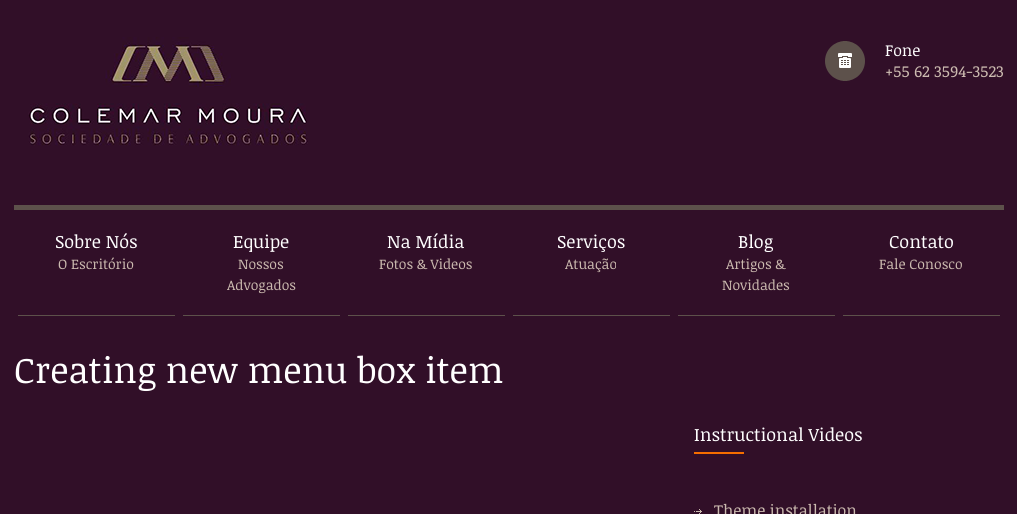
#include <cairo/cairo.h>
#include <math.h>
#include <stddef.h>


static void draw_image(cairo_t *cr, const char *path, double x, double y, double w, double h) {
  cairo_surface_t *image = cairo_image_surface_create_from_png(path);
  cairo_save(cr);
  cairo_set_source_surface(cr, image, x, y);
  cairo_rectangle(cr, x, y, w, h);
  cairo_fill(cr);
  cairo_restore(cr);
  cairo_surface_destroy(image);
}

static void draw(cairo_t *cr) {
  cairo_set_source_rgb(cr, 49 / 255.0, 15 / 255.0, 40 / 255.0);
  cairo_paint(cr);
  cairo_set_source_rgb(cr, 93 / 255.0, 81 / 255.0, 75 / 255.0);
  cairo_rectangle(cr, 14, 205, 990, 5);
  cairo_fill(cr);
  draw_image(cr, "images/1.png", 28, 37, 280, 109);
  draw_image(cr, "images/2.png", 825, 41, 40, 40);
  cairo_rectangle(cr, 18, 315, 157, 1);
  cairo_fill(cr);
  cairo_rectangle(cr, 183, 315, 157, 1);
  cairo_fill(cr);
  cairo_rectangle(cr, 348, 315, 157, 1);
  cairo_fill(cr);
  cairo_rectangle(cr, 513, 315, 157, 1);
  cairo_fill(cr);
  cairo_rectangle(cr, 678, 315, 157, 1);
  cairo_fill(cr);
  cairo_rectangle(cr, 843, 315, 157, 1);
  cairo_fill(cr);
  cairo_set_source_rgb(cr, 246 / 255.0, 110 / 255.0, 0);
  cairo_rectangle(cr, 694, 452, 50, 2);
  cairo_fill(cr);
  draw_image(cr, "images/3.png", 694, 509, 8, 5);
  cairo_select_font_face(cr, "Noticia Text", CAIRO_FONT_SLANT_NORMAL, CAIRO_FONT_WEIGHT_NORMAL);
  cairo_set_font_size(cr, 16);
  cairo_set_source_rgb(cr, 1, 1, 1);
  cairo_move_to(cr, 885, 56);
  cairo_show_text(cr, "Fone");
  cairo_set_source_rgb(cr, 203 / 255.0, 186 / 255.0, 175 / 255.0);
  cairo_move_to(cr, 885, 77);
  cairo_show_text(cr, "+55 62 3594-3523");
  cairo_set_font_size(cr, 18);
  cairo_set_source_rgb(cr, 1, 1, 1);
  cairo_move_to(cr, 55, 248);
  cairo_show_text(cr, "Sobre Nós");
  cairo_set_font_size(cr, 14);
  cairo_set_source_rgb(cr, 203 / 255.0, 186 / 255.0, 175 / 255.0);
  cairo_move_to(cr, 58, 269);
  cairo_show_text(cr, "O Escritório");
  cairo_set_font_size(cr, 18);
  cairo_set_source_rgb(cr, 1, 1, 1);
  cairo_move_to(cr, 233, 248);
  cairo_show_text(cr, "Equipe");
  cairo_set_font_size(cr, 14);
  cairo_set_source_rgb(cr, 203 / 255.0, 186 / 255.0, 175 / 255.0);
  cairo_move_to(cr, 238, 269);
  cairo_show_text(cr, "Nossos");
  cairo_move_to(cr, 227, 290);
  cairo_show_text(cr, "Advogados");
  cairo_set_font_size(cr, 18);
  cairo_set_source_rgb(cr, 1, 1, 1);
  cairo_move_to(cr, 387, 248);
  cairo_show_text(cr, "Na Mídia");
  cairo_set_font_size(cr, 14);
  cairo_set_source_rgb(cr, 203 / 255.0, 186 / 255.0, 175 / 255.0);
  cairo_move_to(cr, 379, 269);
  cairo_show_text(cr, "Fotos & Videos");
  cairo_set_font_size(cr, 18);
  cairo_set_source_rgb(cr, 1, 1, 1);
  cairo_move_to(cr, 557, 248);
  cairo_show_text(cr, "Serviços");
  cairo_set_font_size(cr, 14);
  cairo_set_source_rgb(cr, 203 / 255.0, 186 / 255.0, 175 / 255.0);
  cairo_move_to(cr, 565, 269);
  cairo_show_text(cr, "Atuação");
  cairo_set_font_size(cr, 18);
  cairo_set_source_rgb(cr, 1, 1, 1);
  cairo_move_to(cr, 738, 248);
  cairo_show_text(cr, "Blog");
  cairo_set_font_size(cr, 14);
  cairo_set_source_rgb(cr, 203 / 255.0, 186 / 255.0, 175 / 255.0);
  cairo_move_to(cr, 726, 269);
  cairo_show_text(cr, "Artigos &");
  cairo_move_to(cr, 722, 290);
  cairo_show_text(cr, "Novidades");
  cairo_set_font_size(cr, 18);
  cairo_set_source_rgb(cr, 1, 1, 1);
  cairo_move_to(cr, 889, 248);
  cairo_show_text(cr, "Contato");
  cairo_set_font_size(cr, 14);
  cairo_set_source_rgb(cr, 203 / 255.0, 186 / 255.0, 175 / 255.0);
  cairo_move_to(cr, 879, 269);
  cairo_show_text(cr, "Fale Conosco");
  cairo_set_font_size(cr, 36);
  cairo_set_source_rgb(cr, 1, 1, 1);
  cairo_move_to(cr, 14, 383);
  cairo_show_text(cr, "Creating new menu box item");
  cairo_set_font_size(cr, 18);
  cairo_move_to(cr, 694, 441);
  cairo_show_text(cr, "Instructional Videos");
  cairo_set_font_size(cr, 16);
  cairo_set_source_rgb(cr, 203 / 255.0, 186 / 255.0, 175 / 255.0);
  cairo_move_to(cr, 714, 516);
  cairo_show_text(cr, "Theme installation");
}

int main(void) {
  cairo_surface_t *surface = cairo_image_surface_create(CAIRO_FORMAT_RGB24, 1017, 514);
  cairo_t *cr = cairo_create(surface);
  cairo_font_options_t *options = cairo_font_options_create();
  cairo_font_options_set_hint_metrics(options, CAIRO_HINT_METRICS_OFF);
  cairo_font_options_set_hint_style(options, CAIRO_HINT_STYLE_NONE);
  cairo_set_font_options(cr, options);
  cairo_set_miter_limit(cr, 4);
  draw(cr);
  cairo_surface_write_to_png(surface, "out.png");
  cairo_font_options_destroy(options);
  cairo_destroy(cr);
  cairo_surface_destroy(surface);
  return 0;
}
